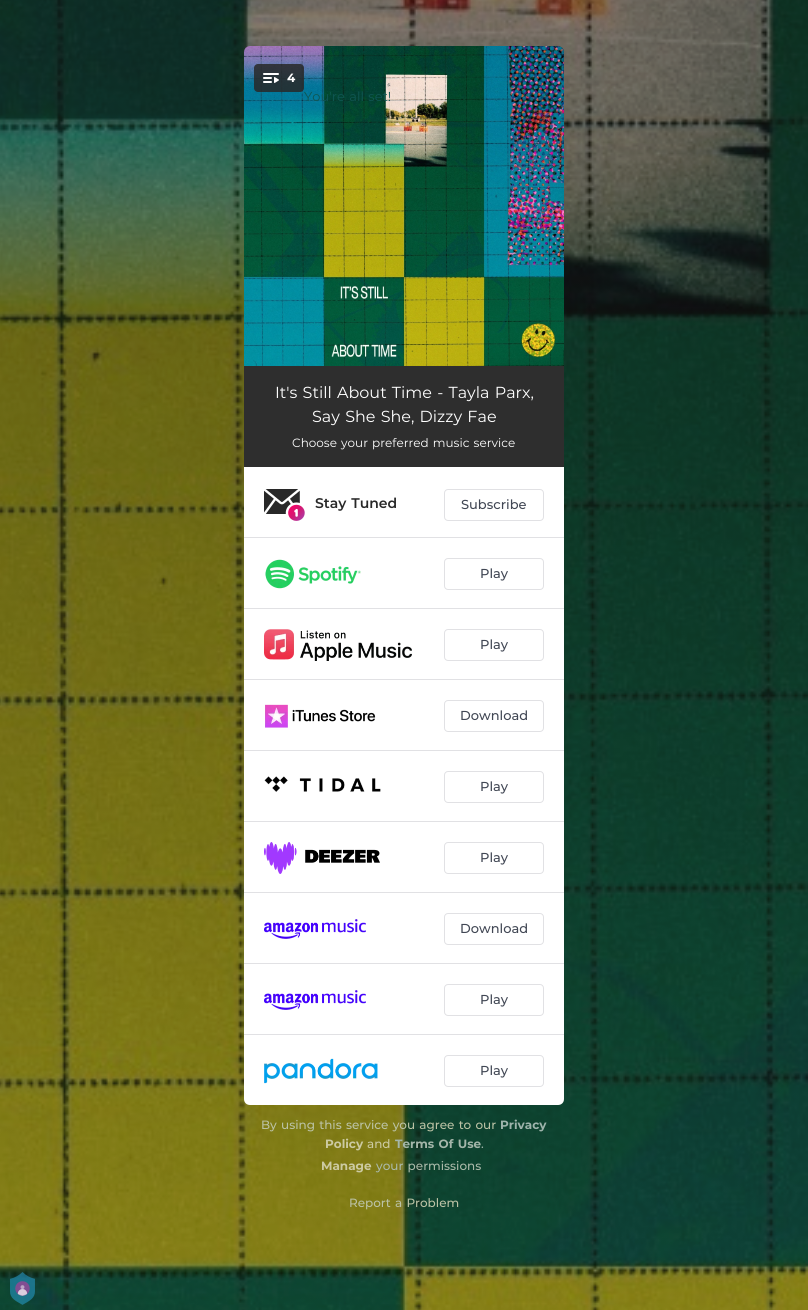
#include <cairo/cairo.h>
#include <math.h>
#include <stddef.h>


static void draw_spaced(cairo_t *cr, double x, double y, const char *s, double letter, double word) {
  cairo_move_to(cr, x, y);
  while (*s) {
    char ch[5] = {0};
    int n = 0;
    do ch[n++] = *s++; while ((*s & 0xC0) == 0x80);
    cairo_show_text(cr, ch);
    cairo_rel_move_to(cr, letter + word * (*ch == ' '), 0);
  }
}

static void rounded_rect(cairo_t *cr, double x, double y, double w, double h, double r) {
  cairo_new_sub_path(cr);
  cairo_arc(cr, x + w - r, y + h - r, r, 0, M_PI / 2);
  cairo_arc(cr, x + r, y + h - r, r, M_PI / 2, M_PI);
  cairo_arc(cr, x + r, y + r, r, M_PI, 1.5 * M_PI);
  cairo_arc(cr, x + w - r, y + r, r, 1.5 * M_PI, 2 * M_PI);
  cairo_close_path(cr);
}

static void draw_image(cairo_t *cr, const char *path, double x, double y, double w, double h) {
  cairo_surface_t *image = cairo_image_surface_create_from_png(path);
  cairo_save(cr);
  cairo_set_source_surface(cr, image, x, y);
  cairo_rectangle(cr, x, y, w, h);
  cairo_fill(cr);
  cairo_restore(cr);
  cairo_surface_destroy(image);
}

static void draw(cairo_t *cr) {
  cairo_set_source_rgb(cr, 1, 1, 1);
  cairo_paint(cr);
  draw_image(cr, "images/1.png", 0, 0, 808, 1310);
  draw_image(cr, "images/2.png", 244, 46, 320, 320);
  cairo_set_source_rgba(cr, 40 / 255.0, 40 / 255.0, 40 / 255.0, 0.85);
  rounded_rect(cr, 254, 64, 50, 28, 4);
  cairo_fill(cr);
  draw_image(cr, "images/3.png", 263, 73, 16, 10);
  cairo_set_source_rgb(cr, 46 / 255.0, 46 / 255.0, 46 / 255.0);
  cairo_rectangle(cr, 244, 366, 320, 101);
  cairo_fill(cr);
  cairo_set_source_rgb(cr, 1, 1, 1);
  cairo_new_path(cr);
  cairo_move_to(cr, 244, 467);
  cairo_line_to(cr, 564, 467);
  cairo_line_to(cr, 564, 1099);
  cairo_curve_to(cr, 564, 1102.5, 561.5, 1105, 558, 1105);
  cairo_line_to(cr, 250, 1105);
  cairo_curve_to(cr, 246.5, 1105, 244, 1102.5, 244, 1099);
  cairo_close_path(cr);
  cairo_fill(cr);
  cairo_set_source_rgb(cr, 225 / 255.0, 225 / 255.0, 228 / 255.0);
  cairo_rectangle(cr, 244, 537, 320, 1);
  cairo_fill(cr);
  draw_image(cr, "images/4.png", 264, 489, 41, 32);
  rounded_rect(cr, 444.5, 489.5, 99, 31, 3.5);
  cairo_set_line_width(cr, 1);
  cairo_stroke(cr);
  cairo_rectangle(cr, 244, 608, 320, 1);
  cairo_fill(cr);
  draw_image(cr, "images/5.png", 265, 559, 96, 30);
  rounded_rect(cr, 444.5, 558.5, 99, 31, 3.5);
  cairo_stroke(cr);
  cairo_rectangle(cr, 244, 679, 320, 1);
  cairo_fill(cr);
  draw_image(cr, "images/6.png", 264, 629, 148, 32);
  rounded_rect(cr, 444.5, 629.5, 99, 31, 3.5);
  cairo_stroke(cr);
  cairo_rectangle(cr, 244, 750, 320, 1);
  cairo_fill(cr);
  draw_image(cr, "images/7.png", 265, 704, 111, 24);
  rounded_rect(cr, 444.5, 700.5, 99, 31, 3.5);
  cairo_stroke(cr);
  cairo_rectangle(cr, 244, 821, 320, 1);
  cairo_fill(cr);
  draw_image(cr, "images/8.png", 264, 776, 117, 16);
  rounded_rect(cr, 444.5, 771.5, 99, 31, 3.5);
  cairo_stroke(cr);
  cairo_rectangle(cr, 244, 892, 320, 1);
  cairo_fill(cr);
  draw_image(cr, "images/9.png", 264, 842, 116, 32);
  rounded_rect(cr, 444.5, 842.5, 99, 31, 3.5);
  cairo_stroke(cr);
  cairo_rectangle(cr, 244, 963, 320, 1);
  cairo_fill(cr);
  draw_image(cr, "images/10.png", 264, 919, 102, 20);
  rounded_rect(cr, 444.5, 913.5, 99, 31, 3.5);
  cairo_stroke(cr);
  cairo_rectangle(cr, 244, 1034, 320, 1);
  cairo_fill(cr);
  draw_image(cr, "images/10.png", 264, 990, 102, 20);
  rounded_rect(cr, 444.5, 984.5, 99, 31, 3.5);
  cairo_stroke(cr);
  draw_image(cr, "images/11.png", 264, 1058, 115, 26);
  rounded_rect(cr, 444.5, 1055.5, 99, 31, 3.5);
  cairo_stroke(cr);
  draw_image(cr, "images/12.png", 10, 1272, 25, 33);
  cairo_select_font_face(cr, "Montserrat", CAIRO_FONT_SLANT_NORMAL, CAIRO_FONT_WEIGHT_BOLD);
  cairo_set_font_size(cr, 12);
  cairo_set_source_rgb(cr, 1, 1, 1);
  cairo_move_to(cr, 287, 82);
  cairo_show_text(cr, "4");
  cairo_select_font_face(cr, "Montserrat", CAIRO_FONT_SLANT_NORMAL, CAIRO_FONT_WEIGHT_NORMAL);
  cairo_set_font_size(cr, 13);
  cairo_set_source_rgb(cr, 15 / 255.0, 86 / 255.0, 82 / 255.0);
  draw_spaced(cr, 304, 101, "You're all set!", 0, 1);
  cairo_set_font_size(cr, 16);
  cairo_set_source_rgb(cr, 1, 1, 1);
  draw_spaced(cr, 275, 398, "It's Still About Time - Tayla Parx,", 0, 1);
  draw_spaced(cr, 312, 422, "Say She She, Dizzy Fae", 0, 1);
  cairo_set_font_size(cr, 12);
  draw_spaced(cr, 292, 447, "Choose your preferred music service", 0, 1);
  cairo_select_font_face(cr, "Montserrat SemiBold", CAIRO_FONT_SLANT_NORMAL, CAIRO_FONT_WEIGHT_NORMAL);
  cairo_set_font_size(cr, 14);
  cairo_set_source_rgb(cr, 40 / 255.0, 40 / 255.0, 40 / 255.0);
  draw_spaced(cr, 315, 508, "Stay Tuned", 0, 1);
  cairo_select_font_face(cr, "Montserrat Medium", CAIRO_FONT_SLANT_NORMAL, CAIRO_FONT_WEIGHT_NORMAL);
  cairo_set_font_size(cr, 13);
  cairo_set_source_rgb(cr, 65 / 255.0, 71 / 255.0, 84 / 255.0);
  cairo_move_to(cr, 461, 509);
  cairo_show_text(cr, "Subscribe");
  cairo_move_to(cr, 480, 578);
  cairo_show_text(cr, "Play");
  cairo_move_to(cr, 480, 649);
  cairo_show_text(cr, "Play");
  cairo_move_to(cr, 460, 720);
  cairo_show_text(cr, "Download");
  cairo_move_to(cr, 480, 791);
  cairo_show_text(cr, "Play");
  cairo_move_to(cr, 480, 862);
  cairo_show_text(cr, "Play");
  cairo_move_to(cr, 460, 933);
  cairo_show_text(cr, "Download");
  cairo_move_to(cr, 480, 1004);
  cairo_show_text(cr, "Play");
  cairo_move_to(cr, 480, 1075);
  cairo_show_text(cr, "Play");
  cairo_set_font_size(cr, 12);
  cairo_set_source_rgb(cr, 187 / 255.0, 194 / 255.0, 165 / 255.0);
  draw_spaced(cr, 261, 1129, "By using this service you agree to our", 0, 1);
  cairo_select_font_face(cr, "Montserrat", CAIRO_FONT_SLANT_NORMAL, CAIRO_FONT_WEIGHT_BOLD);
  cairo_set_source_rgb(cr, 158 / 255.0, 180 / 255.0, 172 / 255.0);
  cairo_move_to(cr, 500, 1129);
  cairo_show_text(cr, "Privacy");
  cairo_set_source_rgb(cr, 204 / 255.0, 202 / 255.0, 162 / 255.0);
  cairo_move_to(cr, 325, 1148);
  cairo_show_text(cr, "Policy");
  cairo_select_font_face(cr, "Montserrat Medium", CAIRO_FONT_SLANT_NORMAL, CAIRO_FONT_WEIGHT_NORMAL);
  cairo_move_to(cr, 367, 1148);
  cairo_show_text(cr, "and");
  cairo_select_font_face(cr, "Montserrat", CAIRO_FONT_SLANT_NORMAL, CAIRO_FONT_WEIGHT_BOLD);
  cairo_set_source_rgb(cr, 164 / 255.0, 182 / 255.0, 170 / 255.0);
  draw_spaced(cr, 395, 1148, "Terms Of Use", 0, 1);
  cairo_select_font_face(cr, "Montserrat Medium", CAIRO_FONT_SLANT_NORMAL, CAIRO_FONT_WEIGHT_NORMAL);
  cairo_set_source_rgb(cr, 158 / 255.0, 180 / 255.0, 172 / 255.0);
  cairo_move_to(cr, 481, 1148);
  cairo_show_text(cr, ".");
  cairo_select_font_face(cr, "Montserrat", CAIRO_FONT_SLANT_NORMAL, CAIRO_FONT_WEIGHT_BOLD);
  cairo_set_source_rgb(cr, 204 / 255.0, 202 / 255.0, 162 / 255.0);
  cairo_move_to(cr, 321, 1170);
  cairo_show_text(cr, "Manage");
  cairo_select_font_face(cr, "Montserrat Medium", CAIRO_FONT_SLANT_NORMAL, CAIRO_FONT_WEIGHT_NORMAL);
  cairo_set_source_rgb(cr, 170 / 255.0, 185 / 255.0, 169 / 255.0);
  draw_spaced(cr, 376, 1170, "your permissions", 0, 1);
  cairo_set_source_rgb(cr, 187 / 255.0, 194 / 255.0, 165 / 255.0);
  draw_spaced(cr, 349, 1207, "Report a Problem", 0, 1);
}

int main(void) {
  cairo_surface_t *surface = cairo_image_surface_create(CAIRO_FORMAT_RGB24, 808, 1310);
  cairo_t *cr = cairo_create(surface);
  cairo_font_options_t *options = cairo_font_options_create();
  cairo_font_options_set_hint_metrics(options, CAIRO_HINT_METRICS_OFF);
  cairo_font_options_set_hint_style(options, CAIRO_HINT_STYLE_NONE);
  cairo_set_font_options(cr, options);
  cairo_set_miter_limit(cr, 4);
  draw(cr);
  cairo_surface_write_to_png(surface, "out.png");
  cairo_font_options_destroy(options);
  cairo_destroy(cr);
  cairo_surface_destroy(surface);
  return 0;
}
